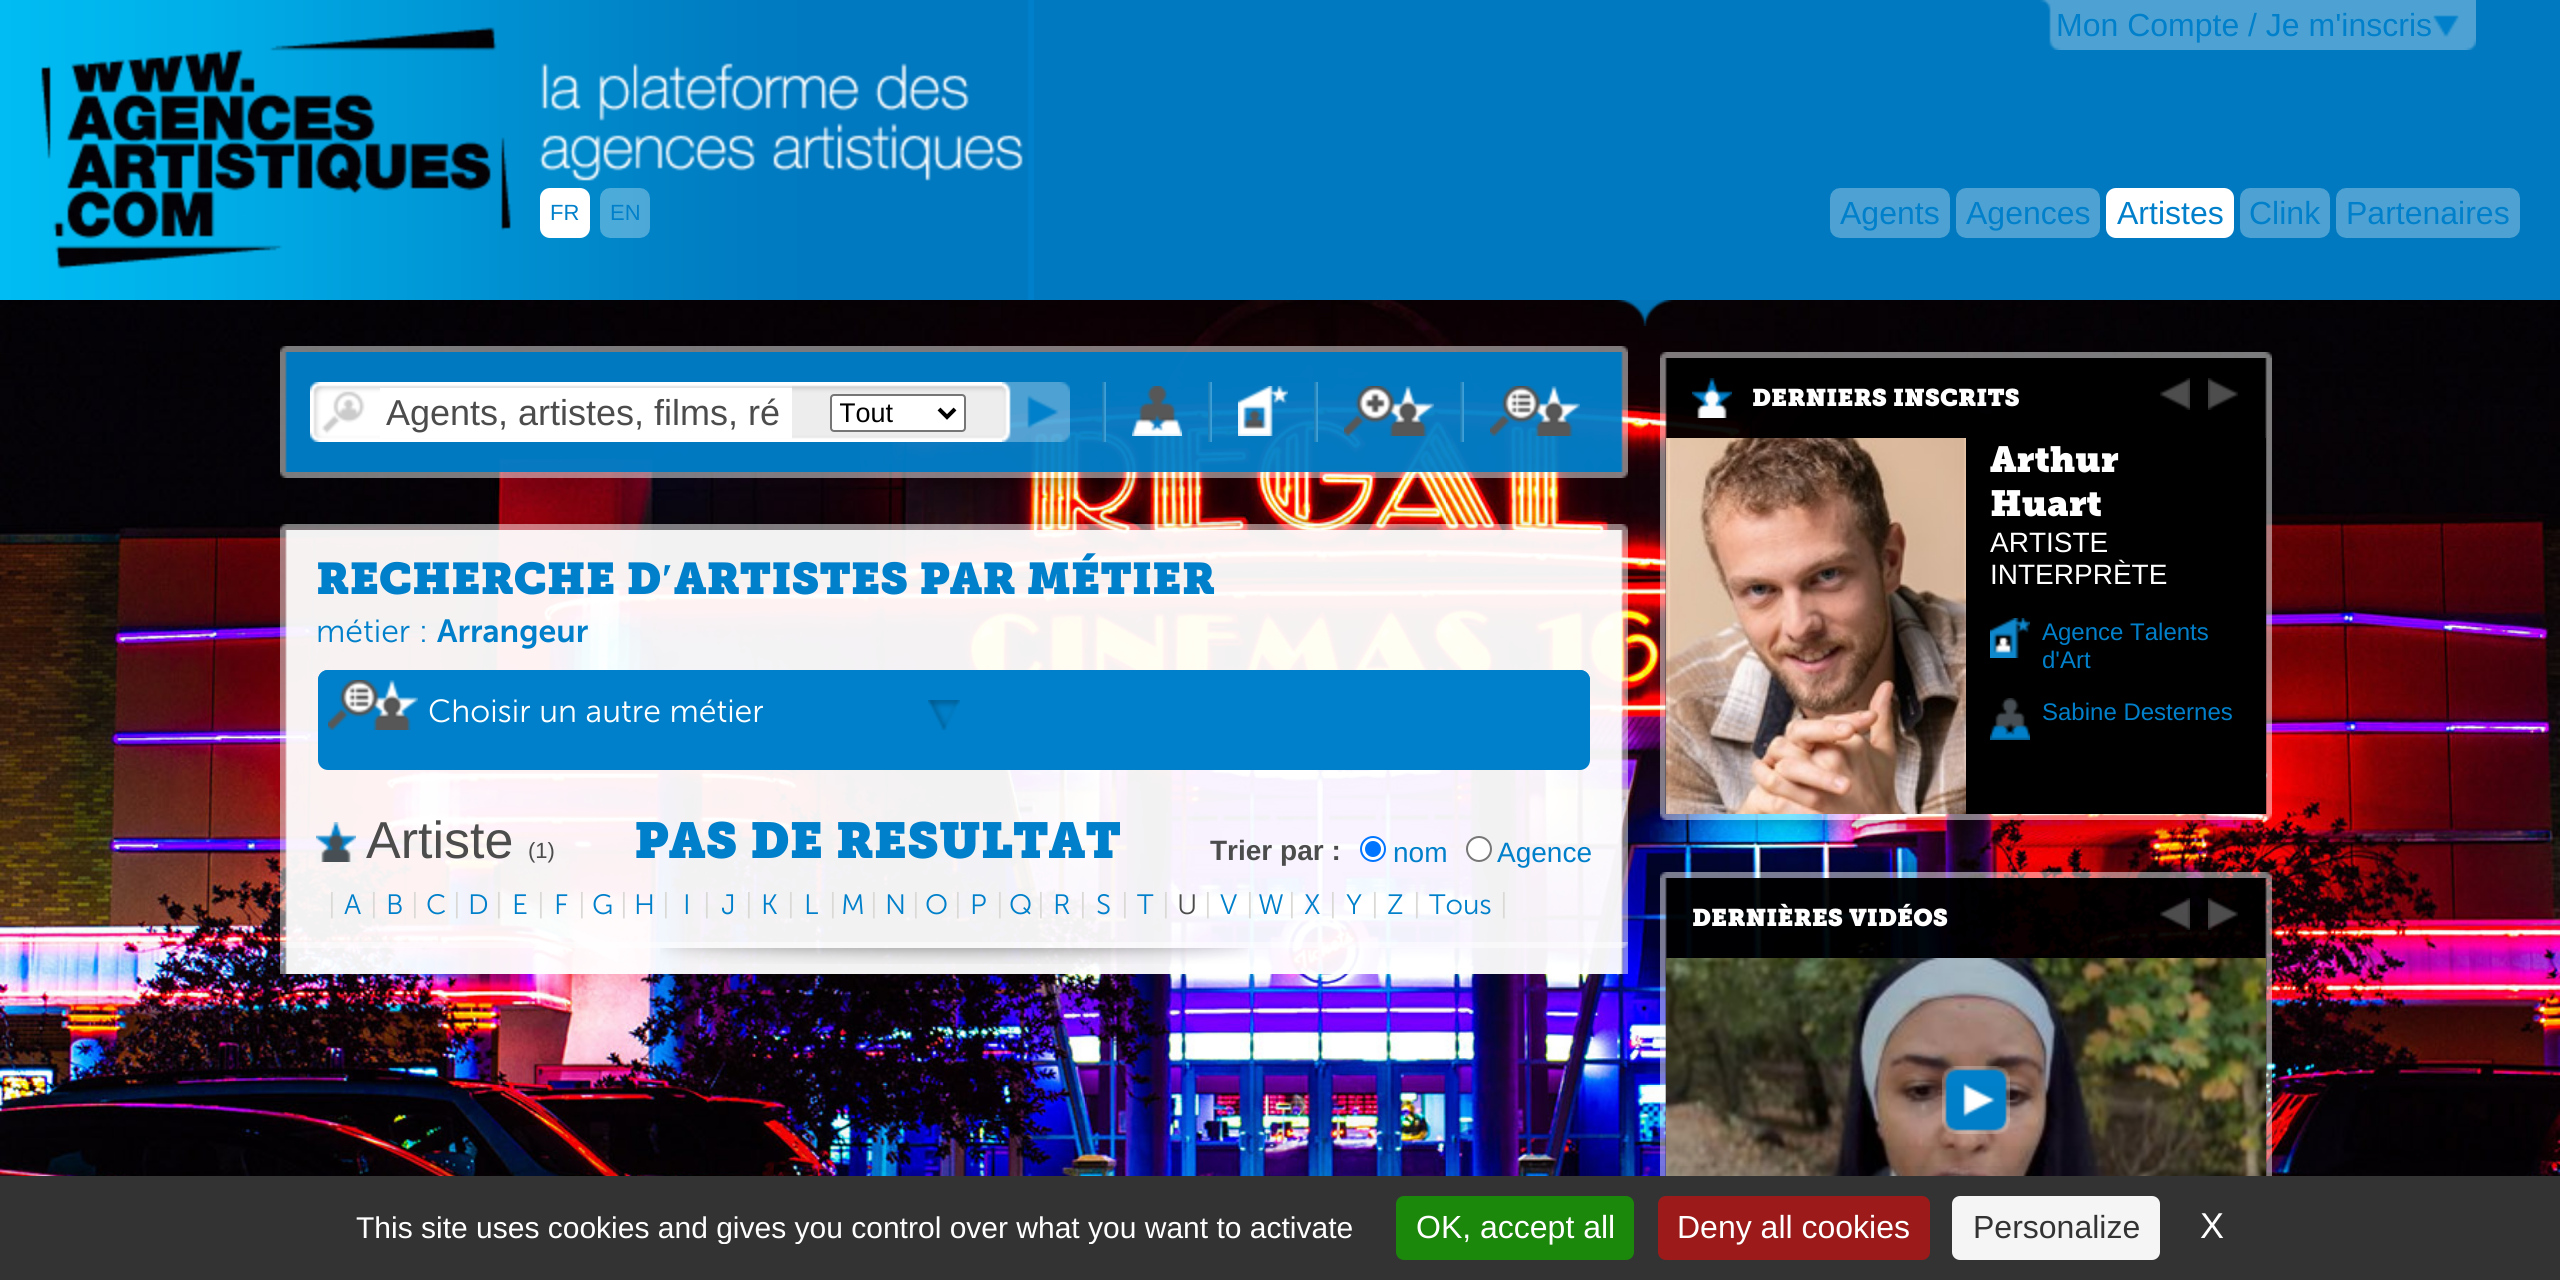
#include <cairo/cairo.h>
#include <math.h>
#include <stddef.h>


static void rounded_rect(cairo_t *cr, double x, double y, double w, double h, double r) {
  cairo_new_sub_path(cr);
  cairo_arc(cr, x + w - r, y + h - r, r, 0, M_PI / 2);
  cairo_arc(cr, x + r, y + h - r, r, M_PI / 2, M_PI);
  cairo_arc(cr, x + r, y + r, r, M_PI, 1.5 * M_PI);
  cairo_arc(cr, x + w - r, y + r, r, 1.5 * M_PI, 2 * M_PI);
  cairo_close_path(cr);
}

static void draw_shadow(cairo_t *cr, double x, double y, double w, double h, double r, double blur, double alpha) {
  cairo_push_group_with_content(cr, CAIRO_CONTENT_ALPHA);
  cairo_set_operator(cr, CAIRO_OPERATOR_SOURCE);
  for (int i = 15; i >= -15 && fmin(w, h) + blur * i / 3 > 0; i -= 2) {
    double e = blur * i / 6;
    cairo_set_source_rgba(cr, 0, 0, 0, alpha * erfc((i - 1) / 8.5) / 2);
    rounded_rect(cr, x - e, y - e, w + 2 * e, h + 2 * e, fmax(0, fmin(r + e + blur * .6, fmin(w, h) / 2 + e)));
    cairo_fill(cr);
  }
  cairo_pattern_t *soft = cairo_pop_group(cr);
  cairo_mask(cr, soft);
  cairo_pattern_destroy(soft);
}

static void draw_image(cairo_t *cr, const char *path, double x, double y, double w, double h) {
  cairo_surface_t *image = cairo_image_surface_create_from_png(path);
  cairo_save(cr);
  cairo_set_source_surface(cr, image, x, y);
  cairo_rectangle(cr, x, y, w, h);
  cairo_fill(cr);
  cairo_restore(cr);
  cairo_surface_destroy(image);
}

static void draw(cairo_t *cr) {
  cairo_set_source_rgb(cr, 1, 1, 1);
  cairo_paint(cr);
  draw_image(cr, "images/1.png", 0, 0, 2560, 1176);
  draw_image(cr, "images/2.png", 1027, 0, 1533, 300);
  draw_image(cr, "images/3.png", 0, 0, 1034, 300);
  cairo_set_source_rgb(cr, 1, 1, 1);
  rounded_rect(cr, 540, 188, 50, 50, 10);
  cairo_fill(cr);
  draw_image(cr, "images/4.png", 600, 188, 50, 50);
  draw_image(cr, "images/5.png", 2040, 0, 436, 50);
  draw_image(cr, "images/6.png", 1830, 188, 120, 50);
  draw_image(cr, "images/7.png", 1956, 188, 144, 50);
  rounded_rect(cr, 2106, 188, 128, 50, 10);
  cairo_fill(cr);
  draw_image(cr, "images/8.png", 2240, 188, 90, 50);
  draw_image(cr, "images/9.png", 2336, 188, 184, 50);
  draw_image(cr, "images/10.png", 1615, 300, 58, 26);
  draw_image(cr, "images/11.png", 280, 346, 1348, 6);
  draw_image(cr, "images/12.png", 280, 352, 1348, 120);
  draw_image(cr, "images/13.png", 310, 382, 70, 60);
  draw_image(cr, "images/14.png", 380, 382, 412, 60);
  cairo_rectangle(cr, 380, 388, 412, 50);
  cairo_fill(cr);
  draw_image(cr, "images/15.png", 792, 382, 210, 60);
  rounded_rect(cr, 831, 395, 134, 36, 3);
  cairo_fill_preserve(cr);
  cairo_set_source_rgb(cr, 118 / 255.0, 118 / 255.0, 118 / 255.0);
  cairo_stroke(cr);
  cairo_new_path(cr);
  cairo_move_to(cr, 939, 409);
  cairo_line_to(cr, 947, 417);
  cairo_line_to(cr, 955, 409);
  cairo_set_source_rgb(cr, 0, 0, 0);
  cairo_set_line_width(cr, 4);
  cairo_stroke(cr);
  draw_image(cr, "images/16.png", 1002, 382, 68, 60);
  draw_image(cr, "images/17.png", 1102, 382, 4, 60);
  draw_image(cr, "images/18.png", 1132, 386, 50, 50);
  draw_image(cr, "images/19.png", 1208, 382, 4, 60);
  draw_image(cr, "images/20.png", 1238, 386, 50, 50);
  draw_image(cr, "images/21.png", 1314, 382, 4, 60);
  draw_image(cr, "images/22.png", 1344, 386, 90, 50);
  draw_image(cr, "images/23.png", 1460, 382, 4, 60);
  draw_image(cr, "images/24.png", 1490, 386, 90, 50);
  draw_image(cr, "images/25.png", 280, 472, 1348, 6);
  draw_image(cr, "images/26.png", 834, 478, 379, 16);
  draw_image(cr, "images/27.png", 499, 514, 1090, 10);
  draw_image(cr, "images/28.png", 280, 524, 1348, 6);
  draw_image(cr, "images/29.png", 280, 530, 1348, 444);
  cairo_set_source_rgb(cr, 0, 128 / 255.0, 202 / 255.0);
  rounded_rect(cr, 318, 670, 1272, 100, 10);
  cairo_fill(cr);
  cairo_new_path(cr);
  cairo_move_to(cr, 328, 670);
  cairo_line_to(cr, 1580, 670);
  cairo_curve_to(cr, 1585.5, 670, 1590, 674.5, 1590, 680);
  cairo_line_to(cr, 1590, 740);
  cairo_line_to(cr, 318, 740);
  cairo_line_to(cr, 318, 680);
  cairo_curve_to(cr, 318, 674.5, 322.5, 670, 328, 670);
  cairo_close_path(cr);
  cairo_fill(cr);
  draw_image(cr, "images/30.png", 328, 680, 90, 50);
  draw_image(cr, "images/31.png", 928, 700, 32, 30);
  draw_image(cr, "images/32.png", 316, 822, 40, 40);
  cairo_set_source_rgb(cr, 1, 1, 1);
  cairo_arc(cr, 1373, 849, 12, 0, 2 * M_PI);
  cairo_fill_preserve(cr);
  cairo_set_source_rgb(cr, 0, 117 / 255.0, 1);
  cairo_set_line_width(cr, 2);
  cairo_stroke(cr);
  cairo_arc(cr, 1373, 849, 8, 0, 2 * M_PI);
  cairo_fill(cr);
  cairo_set_source_rgb(cr, 1, 1, 1);
  cairo_arc(cr, 1479, 849, 12, 0, 2 * M_PI);
  cairo_fill_preserve(cr);
  cairo_set_source_rgb(cr, 118 / 255.0, 118 / 255.0, 118 / 255.0);
  cairo_stroke(cr);
  draw_image(cr, "images/33.png", 280, 942, 1348, 6);
  draw_image(cr, "images/34.png", 660, 948, 588, 16);
  draw_image(cr, "images/35.png", 1660, 352, 612, 6);
  draw_image(cr, "images/36.png", 1660, 358, 612, 456);
  draw_image(cr, "images/37.png", 1692, 378, 40, 40);
  draw_image(cr, "images/38.png", 2160, 378, 30, 32);
  draw_image(cr, "images/39.png", 2208, 378, 30, 32);
  cairo_set_source_rgb(cr, 0, 0, 0);
  cairo_rectangle(cr, 1966, 438, 300, 376);
  cairo_fill(cr);
  draw_image(cr, "images/40.png", 1666, 438, 300, 376);
  draw_image(cr, "images/41.png", 1990, 618, 40, 40);
  draw_image(cr, "images/42.png", 1990, 698, 40, 42);
  draw_image(cr, "images/43.png", 1660, 814, 612, 6);
  draw_image(cr, "images/44.png", 1675, 820, 585, 16);
  draw_image(cr, "images/45.png", 1685, 862, 554, 10);
  draw_image(cr, "images/46.png", 1660, 872, 612, 6);
  draw_image(cr, "images/47.png", 1660, 878, 612, 298);
  draw_image(cr, "images/48.png", 2160, 898, 30, 32);
  draw_image(cr, "images/49.png", 2208, 898, 30, 32);
  draw_image(cr, "images/50.png", 1666, 958, 600, 218);
  draw_image(cr, "images/51.png", 1942, 1066, 68, 68);
  cairo_set_source_rgb(cr, 0, 0, 0);
  draw_shadow(cr, 0, 1216, 2560, 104, 0, 60, 0.25);
  cairo_set_source_rgb(cr, 51 / 255.0, 51 / 255.0, 51 / 255.0);
  cairo_rectangle(cr, 0, 1176, 2560, 104);
  cairo_fill(cr);
  cairo_set_source_rgb(cr, 27 / 255.0, 135 / 255.0, 11 / 255.0);
  rounded_rect(cr, 1396, 1196, 238, 64, 8);
  cairo_fill(cr);
  cairo_set_source_rgb(cr, 156 / 255.0, 26 / 255.0, 26 / 255.0);
  rounded_rect(cr, 1658, 1196, 272, 64, 8);
  cairo_fill(cr);
  cairo_set_source_rgb(cr, 245 / 255.0, 245 / 255.0, 245 / 255.0);
  rounded_rect(cr, 1952, 1196, 208, 64, 8);
  cairo_fill(cr);
  cairo_select_font_face(cr, "Liberation Sans", CAIRO_FONT_SLANT_NORMAL, CAIRO_FONT_WEIGHT_NORMAL);
  cairo_set_font_size(cr, 22);
  cairo_set_source_rgb(cr, 0, 128 / 255.0, 202 / 255.0);
  cairo_move_to(cr, 550, 220);
  cairo_show_text(cr, "FR");
  cairo_move_to(cr, 610, 220);
  cairo_show_text(cr, "EN");
  cairo_set_font_size(cr, 32);
  cairo_move_to(cr, 2056, 36);
  cairo_show_text(cr, "Mon Compte / Je m'inscris");
  cairo_move_to(cr, 1840, 224);
  cairo_show_text(cr, "Agents");
  cairo_move_to(cr, 1966, 224);
  cairo_show_text(cr, "Agences");
  cairo_move_to(cr, 2117, 224);
  cairo_show_text(cr, "Artistes");
  cairo_move_to(cr, 2249, 224);
  cairo_show_text(cr, "Clink");
  cairo_move_to(cr, 2346, 224);
  cairo_show_text(cr, "Partenaires");
  cairo_set_font_size(cr, 36);
  cairo_set_source_rgb(cr, 76 / 255.0, 76 / 255.0, 76 / 255.0);
  cairo_move_to(cr, 386, 425);
  cairo_show_text(cr, "Agents, artistes, films, ré");
  cairo_save(cr);
  cairo_rectangle(cr, 840, 396, 92, 34);
  cairo_clip(cr);
  cairo_set_font_size(cr, 27);
  cairo_set_source_rgb(cr, 0, 0, 0);
  cairo_move_to(cr, 839, 422);
  cairo_show_text(cr, "Tout");
  cairo_restore(cr);
  cairo_select_font_face(cr, "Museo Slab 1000 Black", CAIRO_FONT_SLANT_NORMAL, CAIRO_FONT_WEIGHT_NORMAL);
  cairo_set_font_size(cr, 44);
  cairo_set_source_rgb(cr, 0, 128 / 255.0, 202 / 255.0);
  cairo_move_to(cr, 316, 594);
  cairo_show_text(cr, "RECHERCHE D");
  cairo_select_font_face(cr, "Liberation Serif", CAIRO_FONT_SLANT_NORMAL, CAIRO_FONT_WEIGHT_BOLD);
  cairo_move_to(cr, 661, 594);
  cairo_show_text(cr, "′");
  cairo_select_font_face(cr, "Museo Slab 1000 Black", CAIRO_FONT_SLANT_NORMAL, CAIRO_FONT_WEIGHT_NORMAL);
  cairo_move_to(cr, 674, 594);
  cairo_show_text(cr, "ARTISTES PAR MÉTIER");
  cairo_select_font_face(cr, "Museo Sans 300 Light", CAIRO_FONT_SLANT_NORMAL, CAIRO_FONT_WEIGHT_NORMAL);
  cairo_set_font_size(cr, 32);
  cairo_move_to(cr, 316, 642);
  cairo_show_text(cr, "métier :");
  cairo_select_font_face(cr, "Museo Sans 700 SemiBold", CAIRO_FONT_SLANT_NORMAL, CAIRO_FONT_WEIGHT_NORMAL);
  cairo_move_to(cr, 437, 642);
  cairo_show_text(cr, "Arrangeur");
  cairo_select_font_face(cr, "Museo Sans 300 Light", CAIRO_FONT_SLANT_NORMAL, CAIRO_FONT_WEIGHT_NORMAL);
  cairo_set_source_rgb(cr, 1, 1, 1);
  cairo_move_to(cr, 428, 722);
  cairo_show_text(cr, "Choisir un autre métier");
  cairo_select_font_face(cr, "Liberation Sans", CAIRO_FONT_SLANT_NORMAL, CAIRO_FONT_WEIGHT_NORMAL);
  cairo_set_font_size(cr, 52);
  cairo_set_source_rgb(cr, 76 / 255.0, 76 / 255.0, 76 / 255.0);
  cairo_move_to(cr, 366, 858);
  cairo_show_text(cr, "Artiste");
  cairo_set_font_size(cr, 22);
  cairo_move_to(cr, 528, 858);
  cairo_show_text(cr, "(1)");
  cairo_select_font_face(cr, "Liberation Sans", CAIRO_FONT_SLANT_NORMAL, CAIRO_FONT_WEIGHT_BOLD);
  cairo_set_font_size(cr, 28);
  cairo_move_to(cr, 1210, 860);
  cairo_show_text(cr, "Trier par :");
  cairo_select_font_face(cr, "Liberation Sans", CAIRO_FONT_SLANT_NORMAL, CAIRO_FONT_WEIGHT_NORMAL);
  cairo_set_source_rgb(cr, 0, 128 / 255.0, 202 / 255.0);
  cairo_move_to(cr, 1393, 862);
  cairo_show_text(cr, "nom");
  cairo_move_to(cr, 1497, 862);
  cairo_show_text(cr, "Agence");
  cairo_select_font_face(cr, "Museo Slab 1000 Black", CAIRO_FONT_SLANT_NORMAL, CAIRO_FONT_WEIGHT_NORMAL);
  cairo_set_font_size(cr, 50);
  cairo_move_to(cr, 634, 858);
  cairo_show_text(cr, "PAS DE RESULTAT");
  cairo_select_font_face(cr, "Museo Sans 300 Light", CAIRO_FONT_SLANT_NORMAL, CAIRO_FONT_WEIGHT_NORMAL);
  cairo_set_font_size(cr, 28);
  cairo_set_source_rgb(cr, 218 / 255.0, 217 / 255.0, 214 / 255.0);
  cairo_move_to(cr, 328, 914);
  cairo_show_text(cr, "|");
  cairo_set_source_rgb(cr, 0, 128 / 255.0, 202 / 255.0);
  cairo_move_to(cr, 344, 914);
  cairo_show_text(cr, "A");
  cairo_set_source_rgb(cr, 218 / 255.0, 217 / 255.0, 214 / 255.0);
  cairo_move_to(cr, 370, 914);
  cairo_show_text(cr, "|");
  cairo_set_source_rgb(cr, 0, 128 / 255.0, 202 / 255.0);
  cairo_move_to(cr, 386, 914);
  cairo_show_text(cr, "B");
  cairo_set_source_rgb(cr, 218 / 255.0, 217 / 255.0, 214 / 255.0);
  cairo_move_to(cr, 411, 914);
  cairo_show_text(cr, "|");
  cairo_set_source_rgb(cr, 0, 128 / 255.0, 202 / 255.0);
  cairo_move_to(cr, 426, 914);
  cairo_show_text(cr, "C");
  cairo_set_source_rgb(cr, 218 / 255.0, 217 / 255.0, 214 / 255.0);
  cairo_move_to(cr, 453, 914);
  cairo_show_text(cr, "|");
  cairo_set_source_rgb(cr, 0, 128 / 255.0, 202 / 255.0);
  cairo_move_to(cr, 468, 914);
  cairo_show_text(cr, "D");
  cairo_set_source_rgb(cr, 218 / 255.0, 217 / 255.0, 214 / 255.0);
  cairo_move_to(cr, 495, 914);
  cairo_show_text(cr, "|");
  cairo_set_source_rgb(cr, 0, 128 / 255.0, 202 / 255.0);
  cairo_move_to(cr, 512, 914);
  cairo_show_text(cr, "E");
  cairo_set_source_rgb(cr, 218 / 255.0, 217 / 255.0, 214 / 255.0);
  cairo_move_to(cr, 537, 914);
  cairo_show_text(cr, "|");
  cairo_set_source_rgb(cr, 0, 128 / 255.0, 202 / 255.0);
  cairo_move_to(cr, 554, 914);
  cairo_show_text(cr, "F");
  cairo_set_source_rgb(cr, 218 / 255.0, 217 / 255.0, 214 / 255.0);
  cairo_move_to(cr, 578, 914);
  cairo_show_text(cr, "|");
  cairo_set_source_rgb(cr, 0, 128 / 255.0, 202 / 255.0);
  cairo_move_to(cr, 592, 914);
  cairo_show_text(cr, "G");
  cairo_set_source_rgb(cr, 218 / 255.0, 217 / 255.0, 214 / 255.0);
  cairo_move_to(cr, 620, 914);
  cairo_show_text(cr, "|");
  cairo_set_source_rgb(cr, 0, 128 / 255.0, 202 / 255.0);
  cairo_move_to(cr, 634, 914);
  cairo_show_text(cr, "H");
  cairo_set_source_rgb(cr, 218 / 255.0, 217 / 255.0, 214 / 255.0);
  cairo_move_to(cr, 662, 914);
  cairo_show_text(cr, "|");
  cairo_set_source_rgb(cr, 0, 128 / 255.0, 202 / 255.0);
  cairo_move_to(cr, 683, 914);
  cairo_show_text(cr, "I");
  cairo_set_source_rgb(cr, 218 / 255.0, 217 / 255.0, 214 / 255.0);
  cairo_move_to(cr, 703, 914);
  cairo_show_text(cr, "|");
  cairo_set_source_rgb(cr, 0, 128 / 255.0, 202 / 255.0);
  cairo_move_to(cr, 721, 914);
  cairo_show_text(cr, "J");
  cairo_set_source_rgb(cr, 218 / 255.0, 217 / 255.0, 214 / 255.0);
  cairo_move_to(cr, 745, 914);
  cairo_show_text(cr, "|");
  cairo_set_source_rgb(cr, 0, 128 / 255.0, 202 / 255.0);
  cairo_move_to(cr, 761, 914);
  cairo_show_text(cr, "K");
  cairo_set_source_rgb(cr, 218 / 255.0, 217 / 255.0, 214 / 255.0);
  cairo_move_to(cr, 787, 914);
  cairo_show_text(cr, "|");
  cairo_set_source_rgb(cr, 0, 128 / 255.0, 202 / 255.0);
  cairo_move_to(cr, 804, 914);
  cairo_show_text(cr, "L");
  cairo_set_source_rgb(cr, 218 / 255.0, 217 / 255.0, 214 / 255.0);
  cairo_move_to(cr, 829, 914);
  cairo_show_text(cr, "|");
  cairo_set_source_rgb(cr, 0, 128 / 255.0, 202 / 255.0);
  cairo_move_to(cr, 841, 914);
  cairo_show_text(cr, "M");
  cairo_set_source_rgb(cr, 218 / 255.0, 217 / 255.0, 214 / 255.0);
  cairo_move_to(cr, 870, 914);
  cairo_show_text(cr, "|");
  cairo_set_source_rgb(cr, 0, 128 / 255.0, 202 / 255.0);
  cairo_move_to(cr, 885, 914);
  cairo_show_text(cr, "N");
  cairo_set_source_rgb(cr, 218 / 255.0, 217 / 255.0, 214 / 255.0);
  cairo_move_to(cr, 912, 914);
  cairo_show_text(cr, "|");
  cairo_set_source_rgb(cr, 0, 128 / 255.0, 202 / 255.0);
  cairo_move_to(cr, 925, 914);
  cairo_show_text(cr, "O");
  cairo_set_source_rgb(cr, 218 / 255.0, 217 / 255.0, 214 / 255.0);
  cairo_move_to(cr, 954, 914);
  cairo_show_text(cr, "|");
  cairo_set_source_rgb(cr, 0, 128 / 255.0, 202 / 255.0);
  cairo_move_to(cr, 970, 914);
  cairo_show_text(cr, "P");
  cairo_set_source_rgb(cr, 218 / 255.0, 217 / 255.0, 214 / 255.0);
  cairo_move_to(cr, 996, 914);
  cairo_show_text(cr, "|");
  cairo_set_source_rgb(cr, 0, 128 / 255.0, 202 / 255.0);
  cairo_move_to(cr, 1009, 914);
  cairo_show_text(cr, "Q");
  cairo_set_source_rgb(cr, 218 / 255.0, 217 / 255.0, 214 / 255.0);
  cairo_move_to(cr, 1037, 914);
  cairo_show_text(cr, "|");
  cairo_set_source_rgb(cr, 0, 128 / 255.0, 202 / 255.0);
  cairo_move_to(cr, 1053, 914);
  cairo_show_text(cr, "R");
  cairo_set_source_rgb(cr, 218 / 255.0, 217 / 255.0, 214 / 255.0);
  cairo_move_to(cr, 1079, 914);
  cairo_show_text(cr, "|");
  cairo_set_source_rgb(cr, 0, 128 / 255.0, 202 / 255.0);
  cairo_move_to(cr, 1096, 914);
  cairo_show_text(cr, "S");
  cairo_set_source_rgb(cr, 218 / 255.0, 217 / 255.0, 214 / 255.0);
  cairo_move_to(cr, 1121, 914);
  cairo_show_text(cr, "|");
  cairo_set_source_rgb(cr, 0, 128 / 255.0, 202 / 255.0);
  cairo_move_to(cr, 1137, 914);
  cairo_show_text(cr, "T");
  cairo_set_source_rgb(cr, 218 / 255.0, 217 / 255.0, 214 / 255.0);
  cairo_move_to(cr, 1162, 914);
  cairo_show_text(cr, "|");
  cairo_set_source_rgb(cr, 76 / 255.0, 76 / 255.0, 76 / 255.0);
  cairo_move_to(cr, 1177, 914);
  cairo_show_text(cr, "U");
  cairo_set_source_rgb(cr, 218 / 255.0, 217 / 255.0, 214 / 255.0);
  cairo_move_to(cr, 1204, 914);
  cairo_show_text(cr, "|");
  cairo_set_source_rgb(cr, 0, 128 / 255.0, 202 / 255.0);
  cairo_move_to(cr, 1220, 914);
  cairo_show_text(cr, "V");
  cairo_set_source_rgb(cr, 218 / 255.0, 217 / 255.0, 214 / 255.0);
  cairo_move_to(cr, 1246, 914);
  cairo_show_text(cr, "|");
  cairo_set_source_rgb(cr, 0, 128 / 255.0, 202 / 255.0);
  cairo_move_to(cr, 1258, 914);
  cairo_show_text(cr, "W");
  cairo_set_source_rgb(cr, 218 / 255.0, 217 / 255.0, 214 / 255.0);
  cairo_move_to(cr, 1288, 914);
  cairo_show_text(cr, "|");
  cairo_set_source_rgb(cr, 0, 128 / 255.0, 202 / 255.0);
  cairo_move_to(cr, 1304, 914);
  cairo_show_text(cr, "X");
  cairo_set_source_rgb(cr, 218 / 255.0, 217 / 255.0, 214 / 255.0);
  cairo_move_to(cr, 1329, 914);
  cairo_show_text(cr, "|");
  cairo_set_source_rgb(cr, 0, 128 / 255.0, 202 / 255.0);
  cairo_move_to(cr, 1346, 914);
  cairo_show_text(cr, "Y");
  cairo_set_source_rgb(cr, 218 / 255.0, 217 / 255.0, 214 / 255.0);
  cairo_move_to(cr, 1371, 914);
  cairo_show_text(cr, "|");
  cairo_set_source_rgb(cr, 0, 128 / 255.0, 202 / 255.0);
  cairo_move_to(cr, 1387, 914);
  cairo_show_text(cr, "Z");
  cairo_set_source_rgb(cr, 218 / 255.0, 217 / 255.0, 214 / 255.0);
  cairo_move_to(cr, 1413, 914);
  cairo_show_text(cr, "|");
  cairo_set_source_rgb(cr, 0, 128 / 255.0, 202 / 255.0);
  cairo_move_to(cr, 1429, 914);
  cairo_show_text(cr, "Tous");
  cairo_set_source_rgb(cr, 218 / 255.0, 217 / 255.0, 214 / 255.0);
  cairo_move_to(cr, 1500, 914);
  cairo_show_text(cr, "|");
  cairo_select_font_face(cr, "Museo Slab 1000 Black", CAIRO_FONT_SLANT_NORMAL, CAIRO_FONT_WEIGHT_NORMAL);
  cairo_set_font_size(cr, 24);
  cairo_set_source_rgb(cr, 1, 1, 1);
  cairo_move_to(cr, 1752, 406);
  cairo_show_text(cr, "DERNIERS INSCRITS");
  cairo_set_font_size(cr, 36);
  cairo_move_to(cr, 1990, 472);
  cairo_show_text(cr, "Arthur");
  cairo_move_to(cr, 1990, 516);
  cairo_show_text(cr, "Huart");
  cairo_select_font_face(cr, "Liberation Sans", CAIRO_FONT_SLANT_NORMAL, CAIRO_FONT_WEIGHT_NORMAL);
  cairo_set_font_size(cr, 28);
  cairo_move_to(cr, 1990, 552);
  cairo_show_text(cr, "ARTISTE");
  cairo_move_to(cr, 1990, 584);
  cairo_show_text(cr, "INTERPRÈTE");
  cairo_set_font_size(cr, 24);
  cairo_set_source_rgb(cr, 0, 128 / 255.0, 202 / 255.0);
  cairo_move_to(cr, 2042, 640);
  cairo_show_text(cr, "Agence Talents");
  cairo_move_to(cr, 2042, 668);
  cairo_show_text(cr, "d'Art");
  cairo_move_to(cr, 2042, 720);
  cairo_show_text(cr, "Sabine Desternes");
  cairo_select_font_face(cr, "Museo Slab 1000 Black", CAIRO_FONT_SLANT_NORMAL, CAIRO_FONT_WEIGHT_NORMAL);
  cairo_set_source_rgb(cr, 1, 1, 1);
  cairo_move_to(cr, 1692, 926);
  cairo_show_text(cr, "DERNIÈRES VIDÉOS");
  cairo_save(cr);
  cairo_rectangle(cr, 336, 1210, 1038, 34);
  cairo_clip(cr);
  cairo_select_font_face(cr, "Liberation Sans", CAIRO_FONT_SLANT_NORMAL, CAIRO_FONT_WEIGHT_NORMAL);
  cairo_set_font_size(cr, 30);
  cairo_move_to(cr, 356, 1238);
  cairo_show_text(cr, "This site uses cookies and gives you control over what you want to activate");
  cairo_restore(cr);
  cairo_select_font_face(cr, "Liberation Sans", CAIRO_FONT_SLANT_NORMAL, CAIRO_FONT_WEIGHT_NORMAL);
  cairo_set_font_size(cr, 32);
  cairo_move_to(cr, 1416, 1238);
  cairo_show_text(cr, "OK, accept all");
  cairo_move_to(cr, 1677, 1238);
  cairo_show_text(cr, "Deny all cookies");
  cairo_set_source_rgb(cr, 51 / 255.0, 51 / 255.0, 51 / 255.0);
  cairo_move_to(cr, 1973, 1238);
  cairo_show_text(cr, "Personalize");
  cairo_set_font_size(cr, 36);
  cairo_set_source_rgb(cr, 1, 1, 1);
  cairo_move_to(cr, 2200, 1238);
  cairo_show_text(cr, "X");
}

int main(void) {
  cairo_surface_t *surface = cairo_image_surface_create(CAIRO_FORMAT_RGB24, 2560, 1280);
  cairo_t *cr = cairo_create(surface);
  cairo_font_options_t *options = cairo_font_options_create();
  cairo_font_options_set_hint_metrics(options, CAIRO_HINT_METRICS_OFF);
  cairo_font_options_set_hint_style(options, CAIRO_HINT_STYLE_NONE);
  cairo_set_font_options(cr, options);
  cairo_set_miter_limit(cr, 4);
  draw(cr);
  cairo_surface_write_to_png(surface, "out.png");
  cairo_font_options_destroy(options);
  cairo_destroy(cr);
  cairo_surface_destroy(surface);
  return 0;
}
